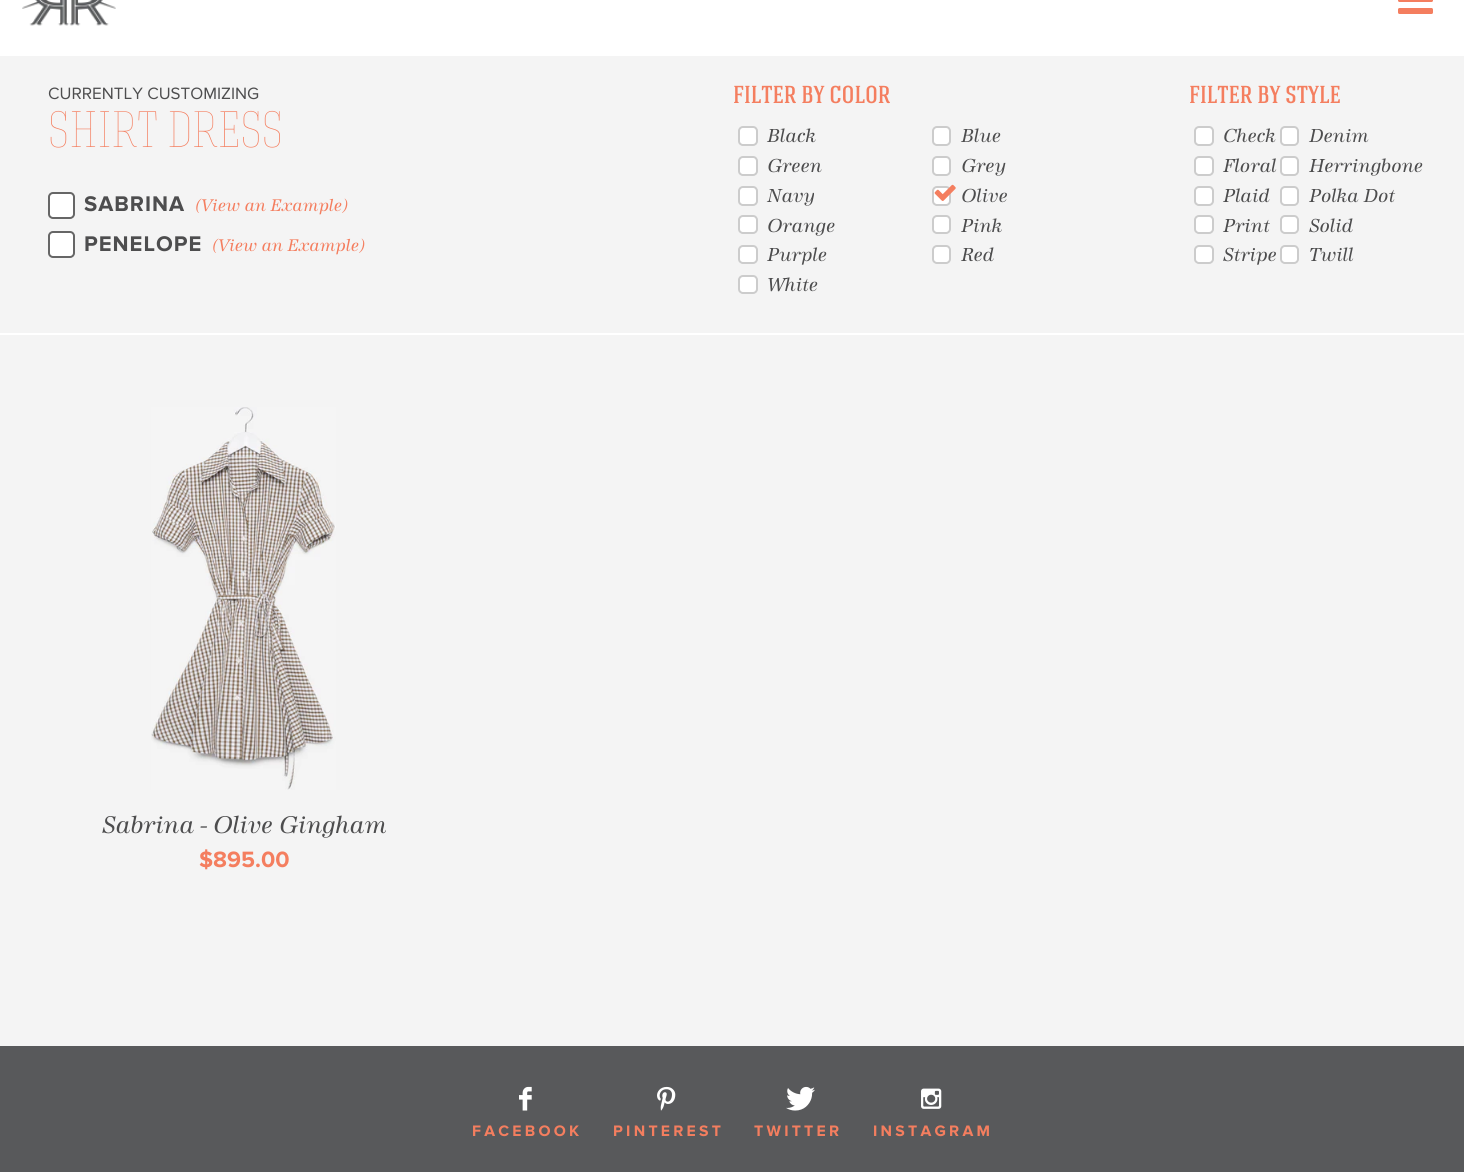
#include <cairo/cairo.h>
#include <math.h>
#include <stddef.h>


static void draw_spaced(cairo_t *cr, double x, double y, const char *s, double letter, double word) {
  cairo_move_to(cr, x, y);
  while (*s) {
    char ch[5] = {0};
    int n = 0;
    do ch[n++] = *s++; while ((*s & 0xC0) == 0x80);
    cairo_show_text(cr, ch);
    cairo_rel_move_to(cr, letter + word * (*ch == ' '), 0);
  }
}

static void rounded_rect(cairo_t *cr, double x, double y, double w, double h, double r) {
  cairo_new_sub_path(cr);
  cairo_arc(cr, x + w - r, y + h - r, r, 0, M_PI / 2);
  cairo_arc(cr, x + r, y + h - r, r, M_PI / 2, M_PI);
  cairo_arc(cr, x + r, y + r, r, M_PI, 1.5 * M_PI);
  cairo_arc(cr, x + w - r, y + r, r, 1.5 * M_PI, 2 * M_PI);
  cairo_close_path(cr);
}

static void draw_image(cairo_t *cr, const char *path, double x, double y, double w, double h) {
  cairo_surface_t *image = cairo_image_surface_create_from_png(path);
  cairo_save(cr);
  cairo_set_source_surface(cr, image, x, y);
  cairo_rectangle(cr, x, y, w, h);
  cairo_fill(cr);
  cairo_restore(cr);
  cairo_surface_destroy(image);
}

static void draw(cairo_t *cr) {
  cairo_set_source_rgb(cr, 244 / 255.0, 244 / 255.0, 244 / 255.0);
  cairo_paint(cr);
  cairo_set_source_rgb(cr, 1, 1, 1);
  cairo_rectangle(cr, 0, 0, 1464, 56);
  cairo_fill(cr);
  draw_image(cr, "images/1.png", 22, 0, 94, 26);
  cairo_set_source_rgb(cr, 244 / 255.0, 126 / 255.0, 95 / 255.0);
  rounded_rect(cr, 1398, -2, 35, 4, 1.5);
  cairo_fill(cr);
  rounded_rect(cr, 1398, 8, 35, 6, 1.5);
  cairo_fill(cr);
  cairo_set_source_rgb(cr, 1, 1, 1);
  cairo_rectangle(cr, 0, 333, 1464, 2);
  cairo_fill(cr);
  rounded_rect(cr, 49, 193, 25, 25, 4);
  cairo_fill_preserve(cr);
  cairo_set_source_rgb(cr, 102 / 255.0, 102 / 255.0, 102 / 255.0);
  cairo_stroke(cr);
  cairo_set_source_rgb(cr, 1, 1, 1);
  rounded_rect(cr, 49, 232, 25, 25, 4);
  cairo_fill_preserve(cr);
  cairo_set_source_rgb(cr, 102 / 255.0, 102 / 255.0, 102 / 255.0);
  cairo_stroke(cr);
  cairo_set_source_rgb(cr, 1, 1, 1);
  rounded_rect(cr, 739, 127, 18, 18, 4);
  cairo_fill_preserve(cr);
  cairo_set_source_rgb(cr, 204 / 255.0, 204 / 255.0, 204 / 255.0);
  cairo_stroke(cr);
  cairo_set_source_rgb(cr, 1, 1, 1);
  rounded_rect(cr, 933, 127, 17, 18, 4);
  cairo_fill_preserve(cr);
  cairo_set_source_rgb(cr, 204 / 255.0, 204 / 255.0, 204 / 255.0);
  cairo_stroke(cr);
  cairo_set_source_rgb(cr, 1, 1, 1);
  rounded_rect(cr, 739, 157, 18, 18, 4);
  cairo_fill_preserve(cr);
  cairo_set_source_rgb(cr, 204 / 255.0, 204 / 255.0, 204 / 255.0);
  cairo_stroke(cr);
  cairo_set_source_rgb(cr, 1, 1, 1);
  rounded_rect(cr, 933, 157, 17, 18, 4);
  cairo_fill_preserve(cr);
  cairo_set_source_rgb(cr, 204 / 255.0, 204 / 255.0, 204 / 255.0);
  cairo_stroke(cr);
  cairo_set_source_rgb(cr, 1, 1, 1);
  rounded_rect(cr, 739, 187, 18, 18, 4);
  cairo_fill_preserve(cr);
  cairo_set_source_rgb(cr, 204 / 255.0, 204 / 255.0, 204 / 255.0);
  cairo_stroke(cr);
  cairo_set_source_rgb(cr, 1, 1, 1);
  rounded_rect(cr, 933, 187, 17, 18, 4);
  cairo_fill_preserve(cr);
  cairo_set_source_rgb(cr, 204 / 255.0, 204 / 255.0, 204 / 255.0);
  cairo_stroke(cr);
  draw_image(cr, "images/2.png", 934, 184, 22, 17);
  cairo_set_source_rgb(cr, 1, 1, 1);
  rounded_rect(cr, 739, 216, 18, 17, 4);
  cairo_fill_preserve(cr);
  cairo_set_source_rgb(cr, 204 / 255.0, 204 / 255.0, 204 / 255.0);
  cairo_stroke(cr);
  cairo_set_source_rgb(cr, 1, 1, 1);
  rounded_rect(cr, 933, 216, 17, 17, 4);
  cairo_fill_preserve(cr);
  cairo_set_source_rgb(cr, 204 / 255.0, 204 / 255.0, 204 / 255.0);
  cairo_stroke(cr);
  cairo_set_source_rgb(cr, 1, 1, 1);
  rounded_rect(cr, 739, 246, 18, 17, 4);
  cairo_fill_preserve(cr);
  cairo_set_source_rgb(cr, 204 / 255.0, 204 / 255.0, 204 / 255.0);
  cairo_stroke(cr);
  cairo_set_source_rgb(cr, 1, 1, 1);
  rounded_rect(cr, 933, 246, 17, 17, 4);
  cairo_fill_preserve(cr);
  cairo_set_source_rgb(cr, 204 / 255.0, 204 / 255.0, 204 / 255.0);
  cairo_stroke(cr);
  cairo_set_source_rgb(cr, 1, 1, 1);
  rounded_rect(cr, 739, 276, 18, 17, 4);
  cairo_fill_preserve(cr);
  cairo_set_source_rgb(cr, 204 / 255.0, 204 / 255.0, 204 / 255.0);
  cairo_stroke(cr);
  cairo_set_source_rgb(cr, 1, 1, 1);
  rounded_rect(cr, 1195, 127, 18, 18, 4);
  cairo_fill_preserve(cr);
  cairo_set_source_rgb(cr, 204 / 255.0, 204 / 255.0, 204 / 255.0);
  cairo_stroke(cr);
  cairo_set_source_rgb(cr, 1, 1, 1);
  rounded_rect(cr, 1281, 127, 17, 18, 4);
  cairo_fill_preserve(cr);
  cairo_set_source_rgb(cr, 204 / 255.0, 204 / 255.0, 204 / 255.0);
  cairo_stroke(cr);
  cairo_set_source_rgb(cr, 1, 1, 1);
  rounded_rect(cr, 1195, 157, 18, 18, 4);
  cairo_fill_preserve(cr);
  cairo_set_source_rgb(cr, 204 / 255.0, 204 / 255.0, 204 / 255.0);
  cairo_stroke(cr);
  cairo_set_source_rgb(cr, 1, 1, 1);
  rounded_rect(cr, 1281, 157, 17, 18, 4);
  cairo_fill_preserve(cr);
  cairo_set_source_rgb(cr, 204 / 255.0, 204 / 255.0, 204 / 255.0);
  cairo_stroke(cr);
  cairo_set_source_rgb(cr, 1, 1, 1);
  rounded_rect(cr, 1195, 187, 18, 18, 4);
  cairo_fill_preserve(cr);
  cairo_set_source_rgb(cr, 204 / 255.0, 204 / 255.0, 204 / 255.0);
  cairo_stroke(cr);
  cairo_set_source_rgb(cr, 1, 1, 1);
  rounded_rect(cr, 1281, 187, 17, 18, 4);
  cairo_fill_preserve(cr);
  cairo_set_source_rgb(cr, 204 / 255.0, 204 / 255.0, 204 / 255.0);
  cairo_stroke(cr);
  cairo_set_source_rgb(cr, 1, 1, 1);
  rounded_rect(cr, 1195, 216, 18, 17, 4);
  cairo_fill_preserve(cr);
  cairo_set_source_rgb(cr, 204 / 255.0, 204 / 255.0, 204 / 255.0);
  cairo_stroke(cr);
  cairo_set_source_rgb(cr, 1, 1, 1);
  rounded_rect(cr, 1281, 216, 17, 17, 4);
  cairo_fill_preserve(cr);
  cairo_set_source_rgb(cr, 204 / 255.0, 204 / 255.0, 204 / 255.0);
  cairo_stroke(cr);
  cairo_set_source_rgb(cr, 1, 1, 1);
  rounded_rect(cr, 1195, 246, 18, 17, 4);
  cairo_fill_preserve(cr);
  cairo_set_source_rgb(cr, 204 / 255.0, 204 / 255.0, 204 / 255.0);
  cairo_stroke(cr);
  cairo_set_source_rgb(cr, 1, 1, 1);
  rounded_rect(cr, 1281, 246, 17, 17, 4);
  cairo_fill_preserve(cr);
  cairo_set_source_rgb(cr, 204 / 255.0, 204 / 255.0, 204 / 255.0);
  cairo_stroke(cr);
  draw_image(cr, "images/3.png", 151, 407, 185, 383);
  cairo_set_source_rgb(cr, 88 / 255.0, 89 / 255.0, 91 / 255.0);
  cairo_rectangle(cr, 0, 1046, 1464, 126);
  cairo_fill(cr);
  draw_image(cr, "images/4.png", 519, 1086, 13, 25);
  draw_image(cr, "images/5.png", 657, 1086, 19, 25);
  draw_image(cr, "images/6.png", 786, 1086, 29, 25);
  draw_image(cr, "images/7.png", 921, 1088, 21, 21);
  cairo_select_font_face(cr, "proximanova", CAIRO_FONT_SLANT_NORMAL, CAIRO_FONT_WEIGHT_NORMAL);
  cairo_set_font_size(cr, 17);
  cairo_set_source_rgb(cr, 77 / 255.0, 77 / 255.0, 78 / 255.0);
  cairo_move_to(cr, 48, 99);
  cairo_show_text(cr, "CURRENTLY CUSTOMIZING");
  cairo_select_font_face(cr, "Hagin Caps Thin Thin", CAIRO_FONT_SLANT_NORMAL, CAIRO_FONT_WEIGHT_NORMAL);
  cairo_set_font_size(cr, 51);
  cairo_set_source_rgb(cr, 244 / 255.0, 126 / 255.0, 95 / 255.0);
  cairo_move_to(cr, 48, 147);
  cairo_show_text(cr, "SHIRT DRESS");
  cairo_select_font_face(cr, "proximanova", CAIRO_FONT_SLANT_NORMAL, CAIRO_FONT_WEIGHT_BOLD);
  cairo_set_font_size(cr, 22);
  cairo_set_source_rgb(cr, 77 / 255.0, 77 / 255.0, 78 / 255.0);
  draw_spaced(cr, 84, 211, "SABRINA", 1, 0);
  cairo_select_font_face(cr, "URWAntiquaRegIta", CAIRO_FONT_SLANT_NORMAL, CAIRO_FONT_WEIGHT_NORMAL);
  cairo_set_font_size(cr, 17.5);
  cairo_set_source_rgb(cr, 244 / 255.0, 126 / 255.0, 95 / 255.0);
  cairo_move_to(cr, 195, 211);
  cairo_show_text(cr, "(View an Example)");
  cairo_select_font_face(cr, "proximanova", CAIRO_FONT_SLANT_NORMAL, CAIRO_FONT_WEIGHT_BOLD);
  cairo_set_font_size(cr, 22);
  cairo_set_source_rgb(cr, 77 / 255.0, 77 / 255.0, 78 / 255.0);
  draw_spaced(cr, 84, 251, "PENELOPE", 1, 0);
  cairo_select_font_face(cr, "URWAntiquaRegIta", CAIRO_FONT_SLANT_NORMAL, CAIRO_FONT_WEIGHT_NORMAL);
  cairo_set_font_size(cr, 17.5);
  cairo_set_source_rgb(cr, 244 / 255.0, 126 / 255.0, 95 / 255.0);
  cairo_move_to(cr, 212, 251);
  cairo_show_text(cr, "(View an Example)");
  cairo_select_font_face(cr, "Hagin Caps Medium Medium", CAIRO_FONT_SLANT_NORMAL, CAIRO_FONT_WEIGHT_NORMAL);
  cairo_set_font_size(cr, 24.5);
  cairo_move_to(cr, 733, 103);
  cairo_show_text(cr, "FILTER BY COLOR");
  cairo_select_font_face(cr, "URWAntiquaRegIta", CAIRO_FONT_SLANT_NORMAL, CAIRO_FONT_WEIGHT_NORMAL);
  cairo_set_font_size(cr, 19.5);
  cairo_set_source_rgb(cr, 77 / 255.0, 77 / 255.0, 78 / 255.0);
  cairo_move_to(cr, 767, 142);
  cairo_show_text(cr, "Black");
  cairo_move_to(cr, 961, 142);
  cairo_show_text(cr, "Blue");
  cairo_move_to(cr, 767, 172);
  cairo_show_text(cr, "Green");
  cairo_move_to(cr, 961, 172);
  cairo_show_text(cr, "Grey");
  cairo_move_to(cr, 767, 202);
  cairo_show_text(cr, "Navy");
  cairo_move_to(cr, 961, 202);
  cairo_show_text(cr, "Olive");
  cairo_move_to(cr, 767, 232);
  cairo_show_text(cr, "Orange");
  cairo_move_to(cr, 961, 232);
  cairo_show_text(cr, "Pink");
  cairo_move_to(cr, 767, 261);
  cairo_show_text(cr, "Purple");
  cairo_move_to(cr, 961, 261);
  cairo_show_text(cr, "Red");
  cairo_move_to(cr, 767, 291);
  cairo_show_text(cr, "White");
  cairo_select_font_face(cr, "Hagin Caps Medium Medium", CAIRO_FONT_SLANT_NORMAL, CAIRO_FONT_WEIGHT_NORMAL);
  cairo_set_font_size(cr, 24.5);
  cairo_set_source_rgb(cr, 244 / 255.0, 126 / 255.0, 95 / 255.0);
  cairo_move_to(cr, 1189, 103);
  cairo_show_text(cr, "FILTER BY STYLE");
  cairo_select_font_face(cr, "URWAntiquaRegIta", CAIRO_FONT_SLANT_NORMAL, CAIRO_FONT_WEIGHT_NORMAL);
  cairo_set_font_size(cr, 19.5);
  cairo_set_source_rgb(cr, 77 / 255.0, 77 / 255.0, 78 / 255.0);
  cairo_move_to(cr, 1223, 142);
  cairo_show_text(cr, "Check");
  cairo_move_to(cr, 1309, 142);
  cairo_show_text(cr, "Denim");
  cairo_move_to(cr, 1223, 172);
  cairo_show_text(cr, "Floral");
  cairo_move_to(cr, 1309, 172);
  cairo_show_text(cr, "Herringbone");
  cairo_move_to(cr, 1223, 202);
  cairo_show_text(cr, "Plaid");
  cairo_move_to(cr, 1309, 202);
  cairo_show_text(cr, "Polka Dot");
  cairo_move_to(cr, 1223, 232);
  cairo_show_text(cr, "Print");
  cairo_move_to(cr, 1309, 232);
  cairo_show_text(cr, "Solid");
  cairo_move_to(cr, 1223, 261);
  cairo_show_text(cr, "Stripe");
  cairo_move_to(cr, 1309, 261);
  cairo_show_text(cr, "Twill");
  cairo_set_font_size(cr, 25);
  cairo_move_to(cr, 102, 833);
  cairo_show_text(cr, "Sabrina - Olive Gingham");
  cairo_select_font_face(cr, "proximanova", CAIRO_FONT_SLANT_NORMAL, CAIRO_FONT_WEIGHT_BOLD);
  cairo_set_font_size(cr, 23);
  cairo_set_source_rgb(cr, 244 / 255.0, 126 / 255.0, 95 / 255.0);
  cairo_move_to(cr, 199, 867);
  cairo_show_text(cr, "$895.00");
  cairo_set_font_size(cr, 15.75);
  draw_spaced(cr, 472, 1136, "FACEBOOK", 3.25, 0);
  draw_spaced(cr, 613, 1136, "PINTEREST", 3.25, 0);
  draw_spaced(cr, 754, 1136, "TWITTER", 3.25, 0);
  draw_spaced(cr, 873, 1136, "INSTAGRAM", 3.25, 0);
}

int main(void) {
  cairo_surface_t *surface = cairo_image_surface_create(CAIRO_FORMAT_RGB24, 1464, 1172);
  cairo_t *cr = cairo_create(surface);
  cairo_font_options_t *options = cairo_font_options_create();
  cairo_font_options_set_hint_metrics(options, CAIRO_HINT_METRICS_OFF);
  cairo_font_options_set_hint_style(options, CAIRO_HINT_STYLE_NONE);
  cairo_set_font_options(cr, options);
  cairo_set_miter_limit(cr, 4);
  draw(cr);
  cairo_surface_write_to_png(surface, "out.png");
  cairo_font_options_destroy(options);
  cairo_destroy(cr);
  cairo_surface_destroy(surface);
  return 0;
}
